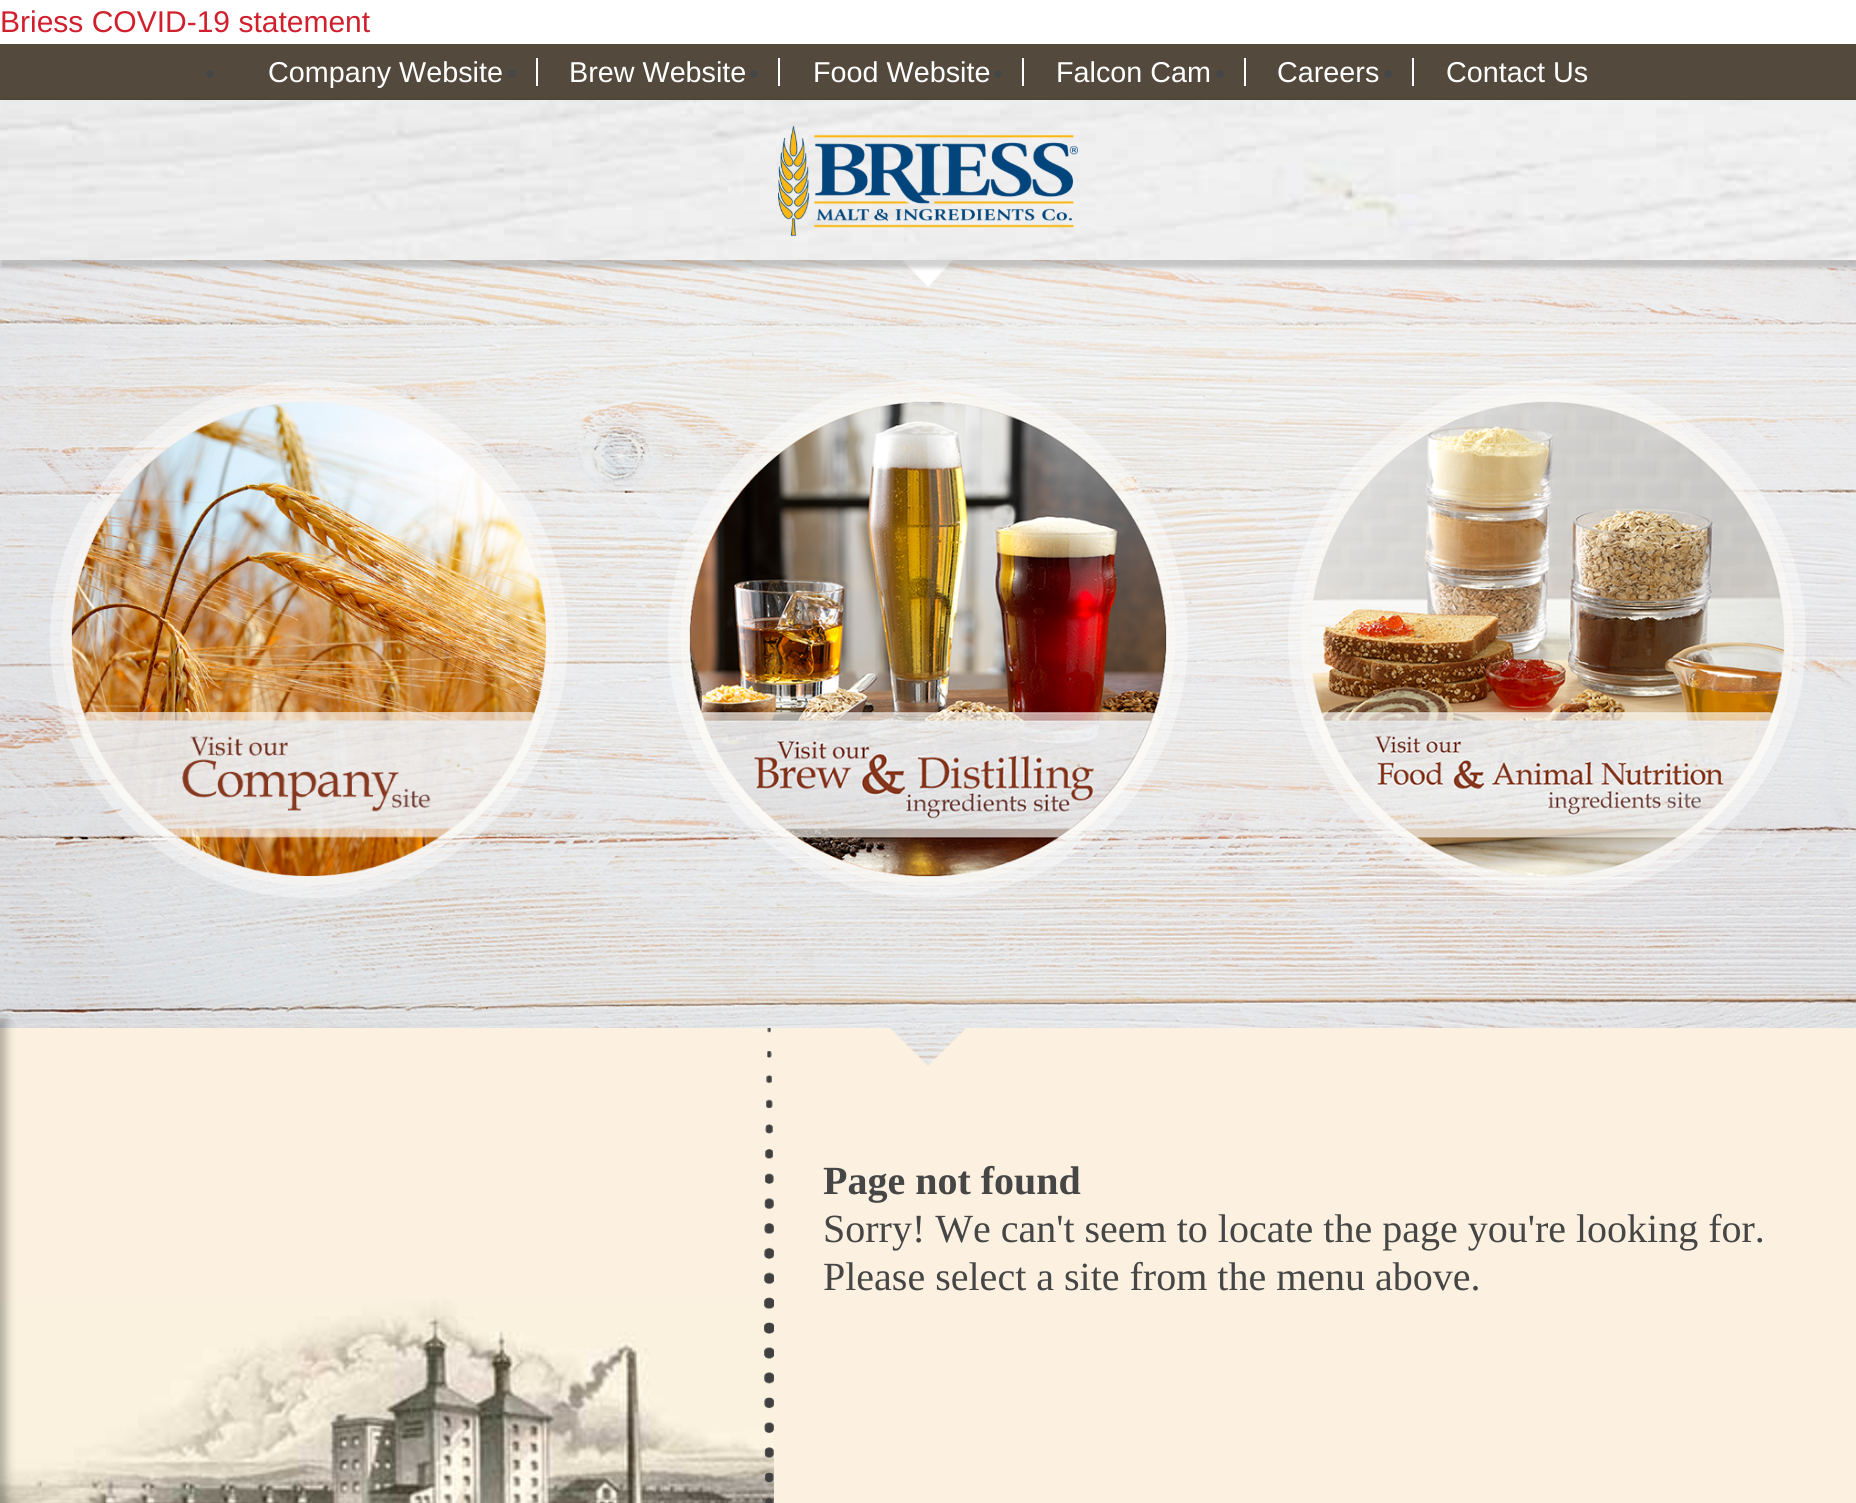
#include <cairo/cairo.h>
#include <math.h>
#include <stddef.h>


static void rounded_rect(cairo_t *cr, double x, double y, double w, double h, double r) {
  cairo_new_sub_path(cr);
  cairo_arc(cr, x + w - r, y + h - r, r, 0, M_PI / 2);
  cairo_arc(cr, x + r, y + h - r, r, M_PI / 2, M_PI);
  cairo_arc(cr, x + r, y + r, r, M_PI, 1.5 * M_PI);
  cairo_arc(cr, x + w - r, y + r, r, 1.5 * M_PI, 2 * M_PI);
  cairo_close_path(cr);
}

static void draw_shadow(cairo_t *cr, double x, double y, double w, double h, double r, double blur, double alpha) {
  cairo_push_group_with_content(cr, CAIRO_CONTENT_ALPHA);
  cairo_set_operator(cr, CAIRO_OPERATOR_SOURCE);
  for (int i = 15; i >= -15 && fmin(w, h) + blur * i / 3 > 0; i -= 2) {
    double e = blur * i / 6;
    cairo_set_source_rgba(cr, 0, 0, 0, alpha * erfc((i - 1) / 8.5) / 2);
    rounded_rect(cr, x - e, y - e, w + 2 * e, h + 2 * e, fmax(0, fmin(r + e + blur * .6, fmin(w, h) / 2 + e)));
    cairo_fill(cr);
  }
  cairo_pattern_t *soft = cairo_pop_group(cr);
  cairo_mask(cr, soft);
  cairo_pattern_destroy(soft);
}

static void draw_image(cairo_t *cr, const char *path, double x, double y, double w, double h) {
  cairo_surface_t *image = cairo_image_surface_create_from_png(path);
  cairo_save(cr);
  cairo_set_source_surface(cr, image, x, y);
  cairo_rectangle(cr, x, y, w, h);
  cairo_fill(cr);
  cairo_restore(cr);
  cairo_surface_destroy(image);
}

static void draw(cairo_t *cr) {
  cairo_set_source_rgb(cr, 1, 1, 1);
  cairo_paint(cr);
  cairo_set_source_rgb(cr, 83 / 255.0, 73 / 255.0, 60 / 255.0);
  cairo_rectangle(cr, 0, 44, 1856, 56);
  cairo_fill(cr);
  cairo_set_source_rgb(cr, 1, 1, 1);
  cairo_rectangle(cr, 536, 58, 2, 28);
  cairo_fill(cr);
  cairo_set_source_rgb(cr, 70 / 255.0, 70 / 255.0, 70 / 255.0);
  cairo_arc(cr, 210, 74, 4, 0, 2 * M_PI);
  cairo_fill(cr);
  cairo_set_source_rgb(cr, 1, 1, 1);
  cairo_rectangle(cr, 778, 58, 2, 28);
  cairo_fill(cr);
  cairo_set_source_rgb(cr, 70 / 255.0, 70 / 255.0, 70 / 255.0);
  cairo_arc(cr, 512, 74, 4, 0, 2 * M_PI);
  cairo_fill(cr);
  cairo_set_source_rgb(cr, 1, 1, 1);
  cairo_rectangle(cr, 1022, 58, 2, 28);
  cairo_fill(cr);
  cairo_set_source_rgb(cr, 70 / 255.0, 70 / 255.0, 70 / 255.0);
  cairo_arc(cr, 754, 74, 4, 0, 2 * M_PI);
  cairo_fill(cr);
  cairo_set_source_rgb(cr, 1, 1, 1);
  cairo_rectangle(cr, 1244, 58, 2, 28);
  cairo_fill(cr);
  cairo_set_source_rgb(cr, 70 / 255.0, 70 / 255.0, 70 / 255.0);
  cairo_arc(cr, 998, 74, 4, 0, 2 * M_PI);
  cairo_fill(cr);
  cairo_set_source_rgb(cr, 1, 1, 1);
  cairo_rectangle(cr, 1412, 58, 2, 28);
  cairo_fill(cr);
  cairo_set_source_rgb(cr, 70 / 255.0, 70 / 255.0, 70 / 255.0);
  cairo_arc(cr, 1220, 74, 4, 0, 2 * M_PI);
  cairo_fill(cr);
  cairo_arc(cr, 1388, 74, 4, 0, 2 * M_PI);
  cairo_fill(cr);
  draw_image(cr, "images/3.png", 0, 260, 1856, 806);
  cairo_set_source_rgb(cr, 30 / 255.0, 30 / 255.0, 30 / 255.0);
  draw_shadow(cr, 0, 100, 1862, 168, 0, 2, 0.2);
  draw_image(cr, "images/1.png", 0, 100, 1856, 160);
  draw_image(cr, "images/2.png", 778, 126, 300, 110);
  cairo_arc(cr, 309, 639, 253, 0, 2 * M_PI);
  cairo_set_source_rgba(cr, 1, 1, 1, 0.4);
  cairo_set_line_width(cr, 12);
  cairo_stroke(cr);
  draw_image(cr, "images/4.png", 62, 392, 494, 494);
  rounded_rect(cr, 674, 386, 508, 506, 253);
  cairo_stroke(cr);
  draw_image(cr, "images/5.png", 680, 392, 496, 494);
  cairo_arc(cr, 1547, 639, 253, 0, 2 * M_PI);
  cairo_stroke(cr);
  draw_image(cr, "images/6.png", 1300, 392, 494, 494);
  draw_image(cr, "images/7.png", 0, 1028, 1856, 475);
  draw_image(cr, "images/8.png", 0, 1299, 774, 204);
  draw_image(cr, "images/9.png", 764, 1028, 10, 475);
  cairo_set_source_rgb(cr, 0, 0, 0);
  draw_shadow(cr, -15, 1020, 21, 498, 0, 5, 0.3);
  cairo_select_font_face(cr, "Liberation Sans", CAIRO_FONT_SLANT_NORMAL, CAIRO_FONT_WEIGHT_NORMAL);
  cairo_set_font_size(cr, 30);
  cairo_set_source_rgb(cr, 208 / 255.0, 32 / 255.0, 46 / 255.0);
  cairo_move_to(cr, 0, 32);
  cairo_show_text(cr, "Briess COVID-19 statement");
  cairo_set_font_size(cr, 28.75);
  cairo_set_source_rgb(cr, 1, 1, 1);
  cairo_move_to(cr, 268, 82);
  cairo_show_text(cr, "Company Website");
  cairo_move_to(cr, 569, 82);
  cairo_show_text(cr, "Brew Website");
  cairo_move_to(cr, 813, 82);
  cairo_show_text(cr, "Food Website");
  cairo_move_to(cr, 1056, 82);
  cairo_show_text(cr, "Falcon Cam");
  cairo_move_to(cr, 1277, 82);
  cairo_show_text(cr, "Careers");
  cairo_move_to(cr, 1446, 82);
  cairo_show_text(cr, "Contact Us");
  cairo_select_font_face(cr, "Liberation Serif", CAIRO_FONT_SLANT_NORMAL, CAIRO_FONT_WEIGHT_BOLD);
  cairo_set_font_size(cr, 40);
  cairo_set_source_rgb(cr, 70 / 255.0, 70 / 255.0, 70 / 255.0);
  cairo_move_to(cr, 823, 1194);
  cairo_show_text(cr, "Page not found");
  cairo_select_font_face(cr, "Liberation Serif", CAIRO_FONT_SLANT_NORMAL, CAIRO_FONT_WEIGHT_NORMAL);
  cairo_move_to(cr, 823, 1242);
  cairo_show_text(cr, "Sorry! We can't seem to locate the page you're looking for.");
  cairo_move_to(cr, 823, 1290);
  cairo_show_text(cr, "Please select a site from the menu above.");
}

int main(void) {
  cairo_surface_t *surface = cairo_image_surface_create(CAIRO_FORMAT_RGB24, 1856, 1503);
  cairo_t *cr = cairo_create(surface);
  cairo_font_options_t *options = cairo_font_options_create();
  cairo_font_options_set_hint_metrics(options, CAIRO_HINT_METRICS_OFF);
  cairo_font_options_set_hint_style(options, CAIRO_HINT_STYLE_NONE);
  cairo_set_font_options(cr, options);
  cairo_set_miter_limit(cr, 4);
  draw(cr);
  cairo_surface_write_to_png(surface, "out.png");
  cairo_font_options_destroy(options);
  cairo_destroy(cr);
  cairo_surface_destroy(surface);
  return 0;
}
